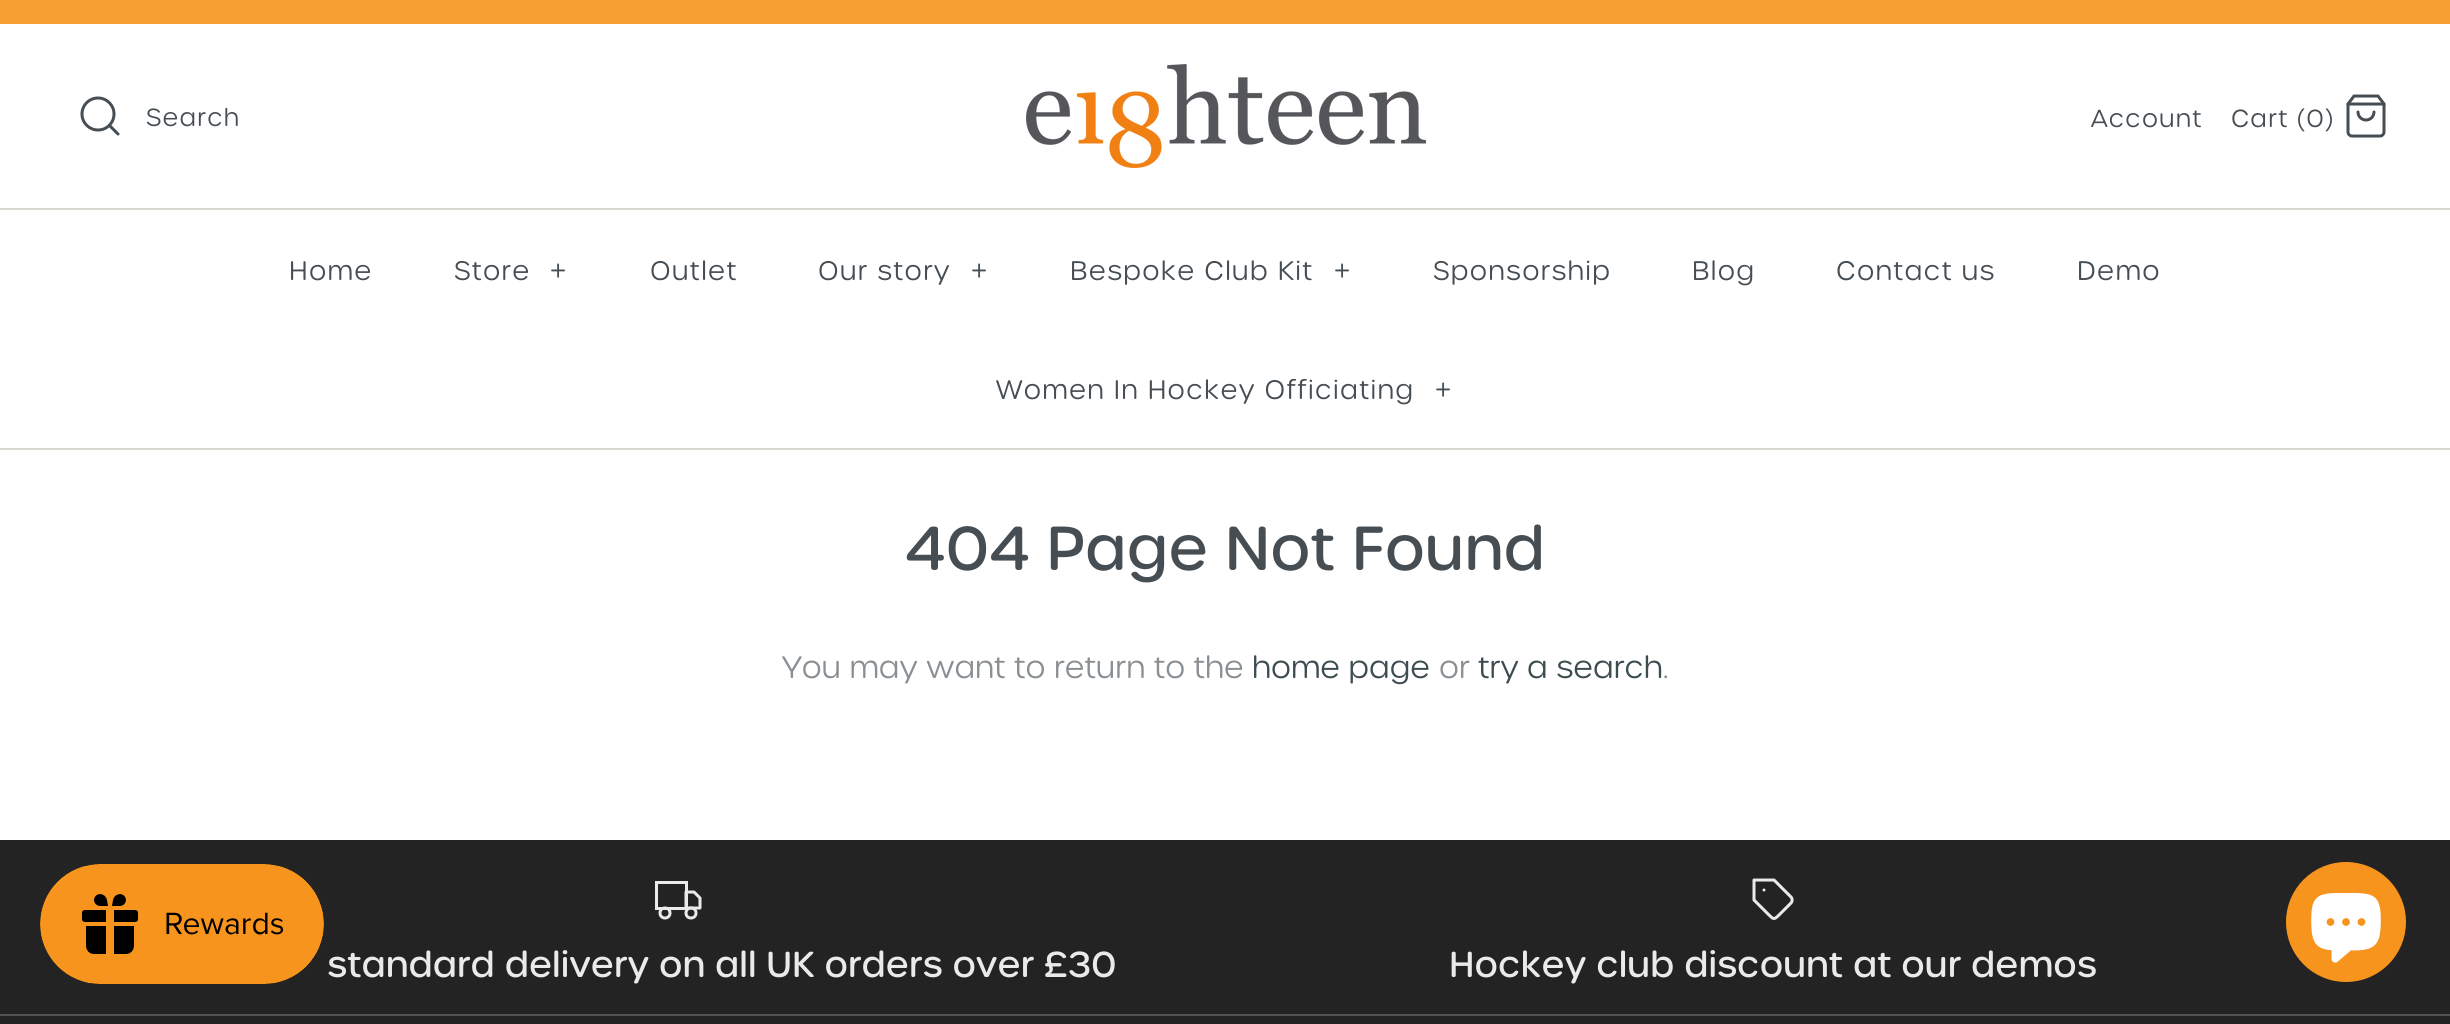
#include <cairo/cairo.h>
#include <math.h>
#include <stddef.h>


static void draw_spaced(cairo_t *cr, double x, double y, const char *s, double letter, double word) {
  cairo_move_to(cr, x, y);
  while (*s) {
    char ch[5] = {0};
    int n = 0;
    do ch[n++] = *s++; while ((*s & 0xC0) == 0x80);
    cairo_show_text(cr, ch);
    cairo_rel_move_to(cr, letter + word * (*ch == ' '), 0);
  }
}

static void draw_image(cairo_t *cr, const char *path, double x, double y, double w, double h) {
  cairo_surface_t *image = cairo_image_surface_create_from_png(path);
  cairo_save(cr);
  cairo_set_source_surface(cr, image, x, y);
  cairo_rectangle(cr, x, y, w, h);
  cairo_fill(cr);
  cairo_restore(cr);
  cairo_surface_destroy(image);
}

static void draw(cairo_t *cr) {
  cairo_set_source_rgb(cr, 1, 1, 1);
  cairo_paint(cr);
  cairo_set_source_rgb(cr, 248 / 255.0, 159 / 255.0, 52 / 255.0);
  cairo_rectangle(cr, 0, 0, 2450, 24);
  cairo_fill(cr);
  draw_image(cr, "images/1.png", 1026, 64, 400, 104);
  cairo_arc(cr, 98, 114, 16, 0, 2 * M_PI);
  cairo_set_source_rgb(cr, 70 / 255.0, 78 / 255.0, 84 / 255.0);
  cairo_set_line_width(cr, 3);
  cairo_stroke(cr);
  cairo_new_path(cr);
  cairo_move_to(cr, 118, 134);
  cairo_line_to(cr, 109.5, 125.5);
  cairo_set_line_cap(cr, CAIRO_LINE_CAP_ROUND);
  cairo_set_line_join(cr, CAIRO_LINE_JOIN_ROUND);
  cairo_stroke(cr);
  draw_image(cr, "images/2.png", 2346, 94, 40, 44);
  cairo_set_source_rgb(cr, 217 / 255.0, 217 / 255.0, 212 / 255.0);
  cairo_rectangle(cr, 0, 448, 2450, 2);
  cairo_fill(cr);
  cairo_rectangle(cr, 0, 208, 2450, 2);
  cairo_fill(cr);
  cairo_set_source_rgb(cr, 35 / 255.0, 35 / 255.0, 35 / 255.0);
  cairo_rectangle(cr, 0, 840, 2450, 184);
  cairo_fill(cr);
  draw_image(cr, "images/3.png", 40, 864, 284, 120);
  cairo_rectangle(cr, 656.5, 882.5, 30, 26);
  cairo_set_source_rgb(cr, 234 / 255.0, 234 / 255.0, 234 / 255.0);
  cairo_set_line_cap(cr, CAIRO_LINE_CAP_BUTT);
  cairo_set_line_join(cr, CAIRO_LINE_JOIN_MITER);
  cairo_stroke(cr);
  cairo_new_path(cr);
  cairo_move_to(cr, 686, 892);
  cairo_line_to(cr, 694, 892);
  cairo_line_to(cr, 700, 898);
  cairo_line_to(cr, 700, 908);
  cairo_line_to(cr, 686, 908);
  cairo_close_path(cr);
  cairo_set_line_cap(cr, CAIRO_LINE_CAP_ROUND);
  cairo_set_line_join(cr, CAIRO_LINE_JOIN_ROUND);
  cairo_stroke(cr);
  cairo_arc(cr, 665, 913, 5, 0, 2 * M_PI);
  cairo_set_line_cap(cr, CAIRO_LINE_CAP_BUTT);
  cairo_set_line_join(cr, CAIRO_LINE_JOIN_MITER);
  cairo_stroke(cr);
  cairo_arc(cr, 691, 913, 5, 0, 2 * M_PI);
  cairo_stroke(cr);
  cairo_new_path(cr);
  cairo_move_to(cr, 1791, 903);
  cairo_line_to(cr, 1779, 915);
  cairo_curve_to(cr, 1774, 920, 1773.5, 919.5, 1768.5, 914.5);
  cairo_line_to(cr, 1754, 900);
  cairo_line_to(cr, 1754, 880);
  cairo_line_to(cr, 1774, 880);
  cairo_line_to(cr, 1791, 897);
  cairo_curve_to(cr, 1792.5, 898.5, 1792.5, 901.5, 1791, 903);
  cairo_close_path(cr);
  cairo_move_to(cr, 1764, 890);
  cairo_line_to(cr, 1764, 890);
  cairo_set_line_cap(cr, CAIRO_LINE_CAP_ROUND);
  cairo_set_line_join(cr, CAIRO_LINE_JOIN_ROUND);
  cairo_stroke(cr);
  cairo_set_source_rgb(cr, 84 / 255.0, 83 / 255.0, 83 / 255.0);
  cairo_rectangle(cr, 0, 1014, 2450, 2);
  cairo_fill(cr);
  cairo_set_source_rgb(cr, 247 / 255.0, 148 / 255.0, 29 / 255.0);
  cairo_arc(cr, 2346, 922, 60, 0, 2 * M_PI);
  cairo_fill(cr);
  draw_image(cr, "images/4.png", 2311, 893, 70, 70);
  cairo_select_font_face(cr, "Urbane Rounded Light", CAIRO_FONT_SLANT_NORMAL, CAIRO_FONT_WEIGHT_NORMAL);
  cairo_set_font_size(cr, 24);
  cairo_set_source_rgb(cr, 70 / 255.0, 78 / 255.0, 84 / 255.0);
  draw_spaced(cr, 146, 126, "Search", 1.25, 0);
  draw_spaced(cr, 2091, 127, "Account", 1.25, 0);
  draw_spaced(cr, 2231, 127, "Cart (0)", 1.25, 0);
  cairo_set_font_size(cr, 26);
  draw_spaced(cr, 289, 280, "Home", 1.3, 0);
  draw_spaced(cr, 454, 280, "Store", 1.3, 0);
  draw_spaced(cr, 550, 280, "+", 1.3, 0);
  draw_spaced(cr, 650, 280, "Outlet", 1.3, 0);
  draw_spaced(cr, 818, 280, "Our story", 1.3, 0);
  draw_spaced(cr, 971, 280, "+", 1.3, 0);
  draw_spaced(cr, 1070, 280, "Bespoke Club Kit", 1.3, 0);
  draw_spaced(cr, 1334, 280, "+", 1.3, 0);
  draw_spaced(cr, 1433, 280, "Sponsorship", 1.3, 0);
  draw_spaced(cr, 1692, 280, "Blog", 1.3, 0);
  draw_spaced(cr, 1836, 280, "Contact us", 1.3, 0);
  draw_spaced(cr, 2077, 280, "Demo", 1.3, 0);
  draw_spaced(cr, 996, 399, "Women In Hockey Officiating", 1.3, 0);
  draw_spaced(cr, 1435, 399, "+", 1.3, 0);
  cairo_select_font_face(cr, "Urbane Rounded Medium", CAIRO_FONT_SLANT_NORMAL, CAIRO_FONT_WEIGHT_NORMAL);
  cairo_set_font_size(cr, 60);
  cairo_move_to(cr, 905, 570);
  cairo_show_text(cr, "404 Page Not Found");
  cairo_select_font_face(cr, "Urbane Rounded Light", CAIRO_FONT_SLANT_NORMAL, CAIRO_FONT_WEIGHT_NORMAL);
  cairo_set_font_size(cr, 30);
  cairo_set_source_rgb(cr, 138 / 255.0, 143 / 255.0, 147 / 255.0);
  cairo_move_to(cr, 782, 678);
  cairo_show_text(cr, "You may want to return to the");
  cairo_set_source_rgb(cr, 61 / 255.0, 76 / 255.0, 79 / 255.0);
  cairo_move_to(cr, 1252, 678);
  cairo_show_text(cr, "home page");
  cairo_set_source_rgb(cr, 138 / 255.0, 143 / 255.0, 147 / 255.0);
  cairo_move_to(cr, 1439, 678);
  cairo_show_text(cr, "or");
  cairo_set_source_rgb(cr, 61 / 255.0, 76 / 255.0, 79 / 255.0);
  cairo_move_to(cr, 1478, 678);
  cairo_show_text(cr, "try a search");
  cairo_set_source_rgb(cr, 138 / 255.0, 143 / 255.0, 147 / 255.0);
  cairo_move_to(cr, 1663, 678);
  cairo_show_text(cr, ".");
  cairo_select_font_face(cr, "Urbane Rounded Medium", CAIRO_FONT_SLANT_NORMAL, CAIRO_FONT_WEIGHT_NORMAL);
  cairo_set_font_size(cr, 35);
  cairo_set_source_rgb(cr, 234 / 255.0, 234 / 255.0, 234 / 255.0);
  cairo_move_to(cr, 327, 977);
  cairo_show_text(cr, "standard delivery on all UK orders over £30");
  cairo_move_to(cr, 1449, 977);
  cairo_show_text(cr, "Hockey club discount at our demos");
}

int main(void) {
  cairo_surface_t *surface = cairo_image_surface_create(CAIRO_FORMAT_RGB24, 2450, 1024);
  cairo_t *cr = cairo_create(surface);
  cairo_font_options_t *options = cairo_font_options_create();
  cairo_font_options_set_hint_metrics(options, CAIRO_HINT_METRICS_OFF);
  cairo_font_options_set_hint_style(options, CAIRO_HINT_STYLE_NONE);
  cairo_set_font_options(cr, options);
  cairo_set_miter_limit(cr, 4);
  draw(cr);
  cairo_surface_write_to_png(surface, "out.png");
  cairo_font_options_destroy(options);
  cairo_destroy(cr);
  cairo_surface_destroy(surface);
  return 0;
}
